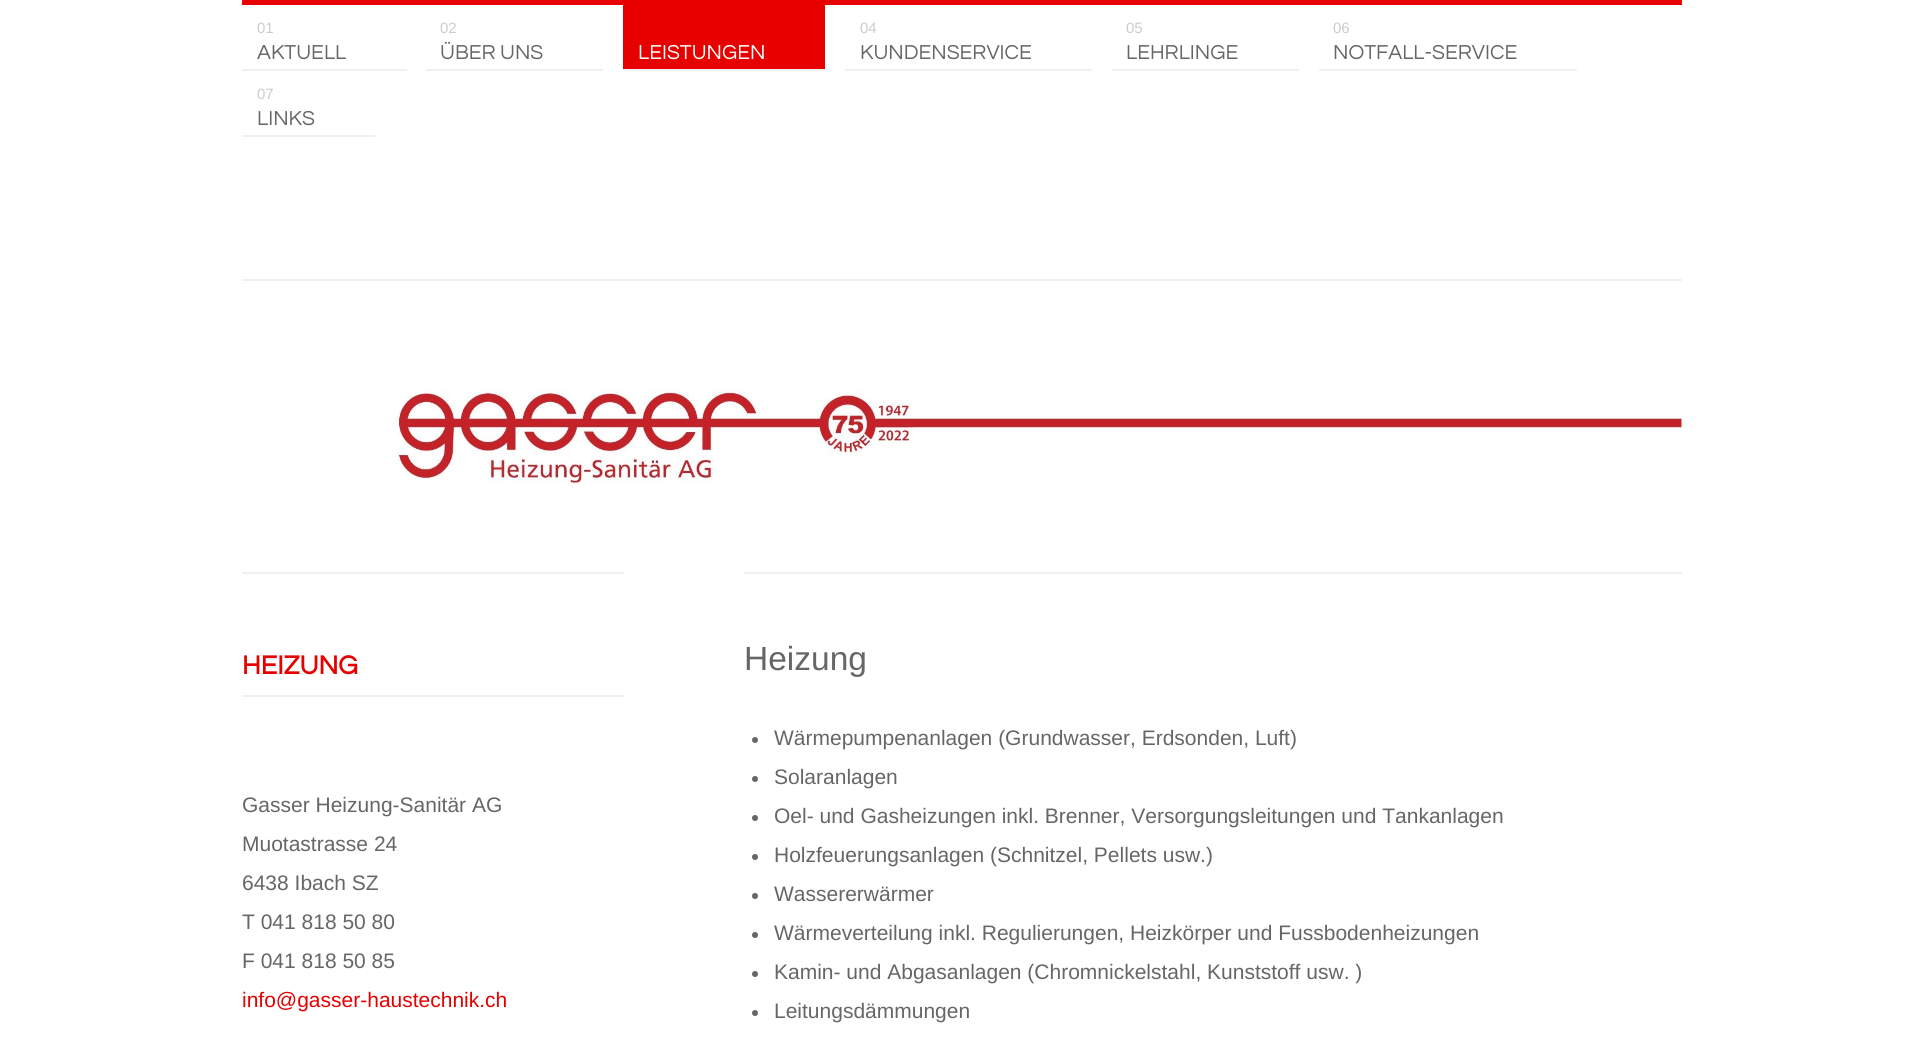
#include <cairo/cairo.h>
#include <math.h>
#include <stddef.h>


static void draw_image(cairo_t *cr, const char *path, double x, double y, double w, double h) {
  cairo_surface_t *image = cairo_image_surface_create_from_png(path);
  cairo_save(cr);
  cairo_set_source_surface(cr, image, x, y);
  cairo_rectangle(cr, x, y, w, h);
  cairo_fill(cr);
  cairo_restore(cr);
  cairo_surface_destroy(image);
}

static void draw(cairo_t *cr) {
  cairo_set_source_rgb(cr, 1, 1, 1);
  cairo_paint(cr);
  cairo_set_source_rgb(cr, 240 / 255.0, 240 / 255.0, 240 / 255.0);
  cairo_rectangle(cr, 242, 279, 1440, 2);
  cairo_fill(cr);
  cairo_set_source_rgb(cr, 230 / 255.0, 0, 0);
  cairo_rectangle(cr, 242, 0, 1440, 5);
  cairo_fill(cr);
  cairo_set_source_rgb(cr, 240 / 255.0, 240 / 255.0, 240 / 255.0);
  cairo_rectangle(cr, 242, 69, 165, 2);
  cairo_fill(cr);
  cairo_rectangle(cr, 426, 69, 177, 2);
  cairo_fill(cr);
  cairo_set_source_rgb(cr, 230 / 255.0, 0, 0);
  cairo_rectangle(cr, 623, 5, 202, 64);
  cairo_fill(cr);
  cairo_set_source_rgb(cr, 240 / 255.0, 240 / 255.0, 240 / 255.0);
  cairo_rectangle(cr, 623, 69, 202, 2);
  cairo_fill(cr);
  cairo_rectangle(cr, 845, 69, 247, 2);
  cairo_fill(cr);
  cairo_rectangle(cr, 1112, 69, 187, 2);
  cairo_fill(cr);
  cairo_rectangle(cr, 1319, 69, 258, 2);
  cairo_fill(cr);
  cairo_rectangle(cr, 242, 135, 133, 2);
  cairo_fill(cr);
  draw_image(cr, "images/1.png", 393, 389, 1289, 95);
  cairo_rectangle(cr, 242, 572, 382, 2);
  cairo_fill(cr);
  cairo_rectangle(cr, 242, 695, 382, 2);
  cairo_fill(cr);
  cairo_rectangle(cr, 744, 572, 938, 2);
  cairo_fill(cr);
  cairo_set_source_rgb(cr, 102 / 255.0, 102 / 255.0, 102 / 255.0);
  cairo_arc(cr, 755, 740, 3, 0, 2 * M_PI);
  cairo_fill(cr);
  cairo_arc(cr, 755, 779, 3, 0, 2 * M_PI);
  cairo_fill(cr);
  cairo_arc(cr, 755, 818, 3, 0, 2 * M_PI);
  cairo_fill(cr);
  cairo_arc(cr, 755, 857, 3, 0, 2 * M_PI);
  cairo_fill(cr);
  cairo_arc(cr, 755, 896, 3, 0, 2 * M_PI);
  cairo_fill(cr);
  cairo_arc(cr, 755, 935, 3, 0, 2 * M_PI);
  cairo_fill(cr);
  cairo_arc(cr, 755, 974, 3, 0, 2 * M_PI);
  cairo_fill(cr);
  cairo_arc(cr, 755, 1013, 3, 0, 2 * M_PI);
  cairo_fill(cr);
  cairo_select_font_face(cr, "Liberation Sans", CAIRO_FONT_SLANT_NORMAL, CAIRO_FONT_WEIGHT_NORMAL);
  cairo_set_font_size(cr, 15);
  cairo_set_source_rgb(cr, 204 / 255.0, 204 / 255.0, 204 / 255.0);
  cairo_move_to(cr, 257, 33);
  cairo_show_text(cr, "01");
  cairo_select_font_face(cr, "Questrial", CAIRO_FONT_SLANT_NORMAL, CAIRO_FONT_WEIGHT_NORMAL);
  cairo_set_font_size(cr, 21);
  cairo_set_source_rgb(cr, 102 / 255.0, 102 / 255.0, 102 / 255.0);
  cairo_move_to(cr, 257, 59);
  cairo_show_text(cr, "AKTUELL");
  cairo_select_font_face(cr, "Liberation Sans", CAIRO_FONT_SLANT_NORMAL, CAIRO_FONT_WEIGHT_NORMAL);
  cairo_set_font_size(cr, 15);
  cairo_set_source_rgb(cr, 204 / 255.0, 204 / 255.0, 204 / 255.0);
  cairo_move_to(cr, 440, 33);
  cairo_show_text(cr, "02");
  cairo_select_font_face(cr, "Questrial", CAIRO_FONT_SLANT_NORMAL, CAIRO_FONT_WEIGHT_NORMAL);
  cairo_set_font_size(cr, 21);
  cairo_set_source_rgb(cr, 102 / 255.0, 102 / 255.0, 102 / 255.0);
  cairo_move_to(cr, 440, 59);
  cairo_show_text(cr, "ÜBER UNS");
  cairo_set_source_rgb(cr, 1, 1, 1);
  cairo_move_to(cr, 638, 59);
  cairo_show_text(cr, "LEISTUNGEN");
  cairo_select_font_face(cr, "Liberation Sans", CAIRO_FONT_SLANT_NORMAL, CAIRO_FONT_WEIGHT_NORMAL);
  cairo_set_font_size(cr, 15);
  cairo_set_source_rgb(cr, 204 / 255.0, 204 / 255.0, 204 / 255.0);
  cairo_move_to(cr, 860, 33);
  cairo_show_text(cr, "04");
  cairo_select_font_face(cr, "Questrial", CAIRO_FONT_SLANT_NORMAL, CAIRO_FONT_WEIGHT_NORMAL);
  cairo_set_font_size(cr, 21);
  cairo_set_source_rgb(cr, 102 / 255.0, 102 / 255.0, 102 / 255.0);
  cairo_move_to(cr, 860, 59);
  cairo_show_text(cr, "KUNDENSERVICE");
  cairo_select_font_face(cr, "Liberation Sans", CAIRO_FONT_SLANT_NORMAL, CAIRO_FONT_WEIGHT_NORMAL);
  cairo_set_font_size(cr, 15);
  cairo_set_source_rgb(cr, 204 / 255.0, 204 / 255.0, 204 / 255.0);
  cairo_move_to(cr, 1126, 33);
  cairo_show_text(cr, "05");
  cairo_select_font_face(cr, "Questrial", CAIRO_FONT_SLANT_NORMAL, CAIRO_FONT_WEIGHT_NORMAL);
  cairo_set_font_size(cr, 21);
  cairo_set_source_rgb(cr, 102 / 255.0, 102 / 255.0, 102 / 255.0);
  cairo_move_to(cr, 1126, 59);
  cairo_show_text(cr, "LEHRLINGE");
  cairo_select_font_face(cr, "Liberation Sans", CAIRO_FONT_SLANT_NORMAL, CAIRO_FONT_WEIGHT_NORMAL);
  cairo_set_font_size(cr, 15);
  cairo_set_source_rgb(cr, 204 / 255.0, 204 / 255.0, 204 / 255.0);
  cairo_move_to(cr, 1333, 33);
  cairo_show_text(cr, "06");
  cairo_select_font_face(cr, "Questrial", CAIRO_FONT_SLANT_NORMAL, CAIRO_FONT_WEIGHT_NORMAL);
  cairo_set_font_size(cr, 21);
  cairo_set_source_rgb(cr, 102 / 255.0, 102 / 255.0, 102 / 255.0);
  cairo_move_to(cr, 1333, 59);
  cairo_show_text(cr, "NOTFALL-SERVICE");
  cairo_select_font_face(cr, "Liberation Sans", CAIRO_FONT_SLANT_NORMAL, CAIRO_FONT_WEIGHT_NORMAL);
  cairo_set_font_size(cr, 15);
  cairo_set_source_rgb(cr, 204 / 255.0, 204 / 255.0, 204 / 255.0);
  cairo_move_to(cr, 257, 99);
  cairo_show_text(cr, "07");
  cairo_select_font_face(cr, "Questrial", CAIRO_FONT_SLANT_NORMAL, CAIRO_FONT_WEIGHT_NORMAL);
  cairo_set_font_size(cr, 21);
  cairo_set_source_rgb(cr, 102 / 255.0, 102 / 255.0, 102 / 255.0);
  cairo_move_to(cr, 257, 125);
  cairo_show_text(cr, "LINKS");
  cairo_select_font_face(cr, "Questrial", CAIRO_FONT_SLANT_NORMAL, CAIRO_FONT_WEIGHT_BOLD);
  cairo_set_font_size(cr, 27);
  cairo_set_source_rgb(cr, 230 / 255.0, 0, 0);
  cairo_move_to(cr, 242, 674);
  cairo_show_text(cr, "HEIZUNG");
  cairo_select_font_face(cr, "Liberation Sans", CAIRO_FONT_SLANT_NORMAL, CAIRO_FONT_WEIGHT_NORMAL);
  cairo_set_font_size(cr, 21);
  cairo_set_source_rgb(cr, 102 / 255.0, 102 / 255.0, 102 / 255.0);
  cairo_move_to(cr, 242, 812);
  cairo_show_text(cr, "Gasser Heizung-Sanitär AG");
  cairo_move_to(cr, 242, 851);
  cairo_show_text(cr, "Muotastrasse 24");
  cairo_move_to(cr, 242, 890);
  cairo_show_text(cr, "6438 Ibach SZ");
  cairo_move_to(cr, 242, 929);
  cairo_show_text(cr, "T 041 818 50 80");
  cairo_move_to(cr, 242, 968);
  cairo_show_text(cr, "F 041 818 50 85");
  cairo_set_source_rgb(cr, 230 / 255.0, 0, 0);
  cairo_move_to(cr, 242, 1007);
  cairo_show_text(cr, "info@gasser-haustechnik.ch");
  cairo_set_font_size(cr, 33.5);
  cairo_set_source_rgb(cr, 102 / 255.0, 102 / 255.0, 102 / 255.0);
  cairo_move_to(cr, 744, 670);
  cairo_show_text(cr, "Heizung");
  cairo_set_font_size(cr, 21);
  cairo_move_to(cr, 774, 745);
  cairo_show_text(cr, "Wärmepumpenanlagen (Grundwasser, Erdsonden, Luft)");
  cairo_move_to(cr, 774, 784);
  cairo_show_text(cr, "Solaranlagen");
  cairo_move_to(cr, 774, 823);
  cairo_show_text(cr, "Oel- und Gasheizungen inkl. Brenner, Versorgungsleitungen und Tankanlagen");
  cairo_move_to(cr, 774, 862);
  cairo_show_text(cr, "Holzfeuerungsanlagen (Schnitzel, Pellets usw.)");
  cairo_move_to(cr, 774, 901);
  cairo_show_text(cr, "Wassererwärmer");
  cairo_move_to(cr, 774, 940);
  cairo_show_text(cr, "Wärmeverteilung inkl. Regulierungen, Heizkörper und Fussbodenheizungen");
  cairo_move_to(cr, 774, 979);
  cairo_show_text(cr, "Kamin- und Abgasanlagen (Chromnickelstahl, Kunststoff usw. )");
  cairo_move_to(cr, 774, 1018);
  cairo_show_text(cr, "Leitungsdämmungen");
}

int main(void) {
  cairo_surface_t *surface = cairo_image_surface_create(CAIRO_FORMAT_RGB24, 1923, 1061);
  cairo_t *cr = cairo_create(surface);
  cairo_font_options_t *options = cairo_font_options_create();
  cairo_font_options_set_hint_metrics(options, CAIRO_HINT_METRICS_OFF);
  cairo_font_options_set_hint_style(options, CAIRO_HINT_STYLE_NONE);
  cairo_set_font_options(cr, options);
  cairo_set_miter_limit(cr, 4);
  draw(cr);
  cairo_surface_write_to_png(surface, "out.png");
  cairo_font_options_destroy(options);
  cairo_destroy(cr);
  cairo_surface_destroy(surface);
  return 0;
}
